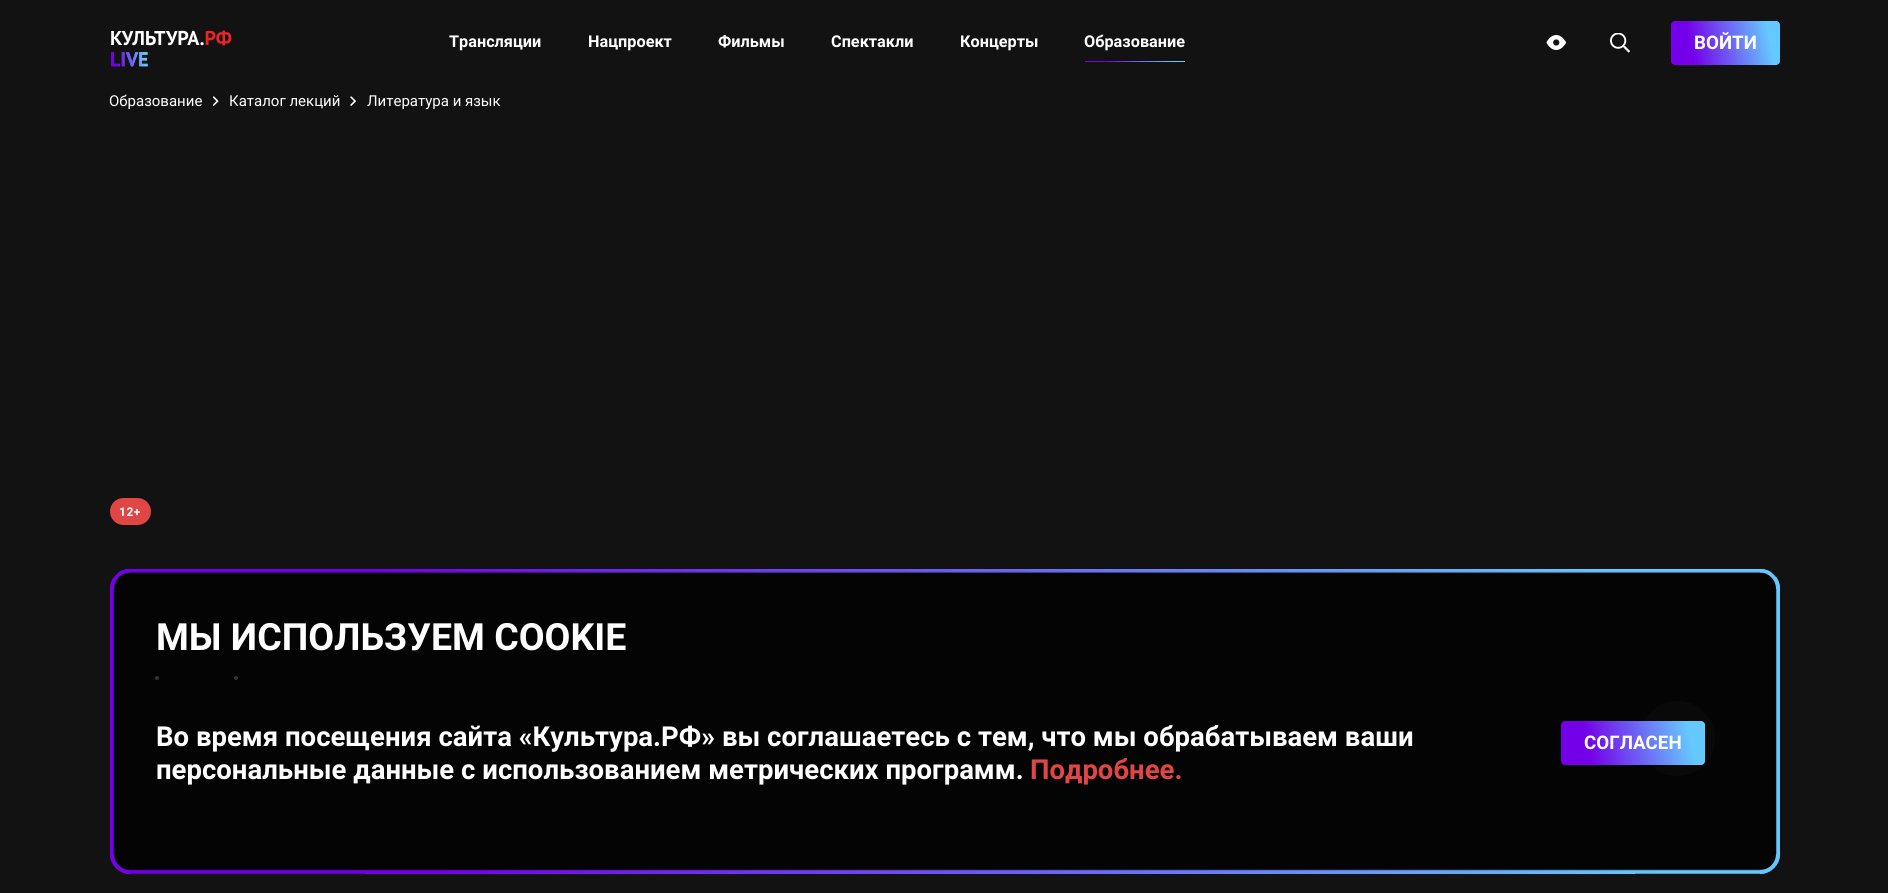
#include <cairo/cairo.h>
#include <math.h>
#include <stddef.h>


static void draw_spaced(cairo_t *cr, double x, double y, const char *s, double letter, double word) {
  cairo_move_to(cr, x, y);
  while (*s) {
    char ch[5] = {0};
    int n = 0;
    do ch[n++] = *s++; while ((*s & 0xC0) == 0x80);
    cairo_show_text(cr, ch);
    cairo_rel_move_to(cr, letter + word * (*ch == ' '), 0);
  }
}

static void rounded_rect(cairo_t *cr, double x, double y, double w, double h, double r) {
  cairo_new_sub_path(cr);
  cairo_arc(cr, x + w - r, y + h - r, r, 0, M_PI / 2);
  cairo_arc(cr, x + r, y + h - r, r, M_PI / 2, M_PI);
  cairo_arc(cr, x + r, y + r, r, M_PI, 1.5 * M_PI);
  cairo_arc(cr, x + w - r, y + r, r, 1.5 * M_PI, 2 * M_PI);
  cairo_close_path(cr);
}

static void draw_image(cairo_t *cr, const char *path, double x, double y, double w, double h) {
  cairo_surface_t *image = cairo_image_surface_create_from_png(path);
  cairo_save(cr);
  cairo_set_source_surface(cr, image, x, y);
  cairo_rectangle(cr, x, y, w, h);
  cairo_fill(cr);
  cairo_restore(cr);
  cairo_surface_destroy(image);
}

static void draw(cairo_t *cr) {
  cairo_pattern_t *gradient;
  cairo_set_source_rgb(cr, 18 / 255.0, 18 / 255.0, 18 / 255.0);
  cairo_paint(cr);
  draw_image(cr, "images/1.png", 111, 30, 121, 37);
  gradient = cairo_pattern_create_linear(1087, 72, 1183, 52);
  cairo_pattern_add_color_stop_rgba(gradient, 0.2, 116 / 255.0, 0, 233 / 255.0, 1);
  cairo_pattern_add_color_stop_rgba(gradient, 0.88, 101 / 255.0, 200 / 255.0, 1, 1);
  cairo_set_source(cr, gradient);
  cairo_pattern_destroy(gradient);
  cairo_rectangle(cr, 1085, 61, 100, 1);
  cairo_fill(cr);
  draw_image(cr, "images/2.png", 1546, 35, 20, 15);
  draw_image(cr, "images/3.png", 1610, 33, 20, 20);
  gradient = cairo_pattern_create_linear(1669, 55, 1782, 31);
  cairo_pattern_add_color_stop_rgba(gradient, 0.2, 116 / 255.0, 0, 233 / 255.0, 1);
  cairo_pattern_add_color_stop_rgba(gradient, 0.88, 101 / 255.0, 200 / 255.0, 1, 1);
  cairo_set_source(cr, gradient);
  cairo_pattern_destroy(gradient);
  rounded_rect(cr, 1671, 21, 109, 44, 4);
  cairo_fill(cr);
  draw_image(cr, "images/4.png", 213, 96, 6, 10);
  draw_image(cr, "images/5.png", 350, 96, 6, 10);
  cairo_set_source_rgb(cr, 225 / 255.0, 70 / 255.0, 70 / 255.0);
  rounded_rect(cr, 110, 498, 41, 27, 13.5);
  cairo_fill(cr);
  cairo_set_source_rgb(cr, 1, 1, 1);
  cairo_arc(cr, 157, 678, 2, 0, 2 * M_PI);
  cairo_fill(cr);
  cairo_arc(cr, 236, 678, 2, 0, 2 * M_PI);
  cairo_fill(cr);
  cairo_set_source_rgb(cr, 47 / 255.0, 47 / 255.0, 47 / 255.0);
  cairo_arc(cr, 1677.5, 738.5, 37.5, 0, 2 * M_PI);
  cairo_fill(cr);
  cairo_set_source_rgba(cr, 0, 0, 0, 0.8);
  rounded_rect(cr, 110, 569, 1670, 305, 20);
  cairo_fill(cr);
  draw_image(cr, "images/6.png", 110, 569, 1670, 305);
  cairo_set_source_rgb(cr, 116 / 255.0, 0, 232 / 255.0);
  cairo_new_path(cr);
  cairo_move_to(cr, 130, 569);
  cairo_curve_to(cr, 119, 569, 110, 578, 110, 589);
  cairo_line_to(cr, 114, 589);
  cairo_curve_to(cr, 114, 580, 121, 572.5, 130, 572.5);
  cairo_close_path(cr);
  cairo_fill(cr);
  cairo_set_source_rgb(cr, 101 / 255.0, 199 / 255.0, 1);
  cairo_new_path(cr);
  cairo_move_to(cr, 1760, 569);
  cairo_curve_to(cr, 1771, 569, 1780, 578, 1780, 589);
  cairo_line_to(cr, 1776, 589);
  cairo_curve_to(cr, 1776, 580, 1769, 572.5, 1760, 572.5);
  cairo_close_path(cr);
  cairo_fill(cr);
  cairo_set_fill_rule(cr, CAIRO_FILL_RULE_EVEN_ODD);
  cairo_new_path(cr);
  cairo_move_to(cr, 1760, 854);
  cairo_line_to(cr, 1780, 854);
  cairo_curve_to(cr, 1780, 865, 1771, 874, 1760, 874);
  cairo_close_path(cr);
  cairo_move_to(cr, 1760, 854);
  cairo_line_to(cr, 1776, 854);
  cairo_curve_to(cr, 1776, 862.5, 1769, 870, 1760, 870);
  cairo_close_path(cr);
  cairo_fill(cr);
  cairo_set_source_rgb(cr, 116 / 255.0, 0, 232 / 255.0);
  cairo_new_path(cr);
  cairo_move_to(cr, 110, 854);
  cairo_line_to(cr, 130, 854);
  cairo_line_to(cr, 130, 874);
  cairo_curve_to(cr, 119, 874, 110, 865, 110, 854);
  cairo_close_path(cr);
  cairo_move_to(cr, 114, 854);
  cairo_line_to(cr, 130, 854);
  cairo_line_to(cr, 130, 870);
  cairo_curve_to(cr, 121, 870, 114, 862.5, 114, 854);
  cairo_close_path(cr);
  cairo_fill(cr);
  gradient = cairo_pattern_create_linear(1560, 759, 1706, 727);
  cairo_pattern_add_color_stop_rgba(gradient, 0.2, 116 / 255.0, 0, 233 / 255.0, 1);
  cairo_pattern_add_color_stop_rgba(gradient, 0.88, 101 / 255.0, 200 / 255.0, 1, 1);
  cairo_set_source(cr, gradient);
  cairo_pattern_destroy(gradient);
  rounded_rect(cr, 1561, 721, 144, 44, 4);
  cairo_fill(cr);
  cairo_select_font_face(cr, "Roboto", CAIRO_FONT_SLANT_NORMAL, CAIRO_FONT_WEIGHT_BOLD);
  cairo_set_font_size(cr, 16.25);
  cairo_set_source_rgb(cr, 1, 1, 1);
  cairo_move_to(cr, 449, 47);
  cairo_show_text(cr, "Трансляции");
  cairo_move_to(cr, 588, 47);
  cairo_show_text(cr, "Нацпроект");
  cairo_move_to(cr, 718, 47);
  cairo_show_text(cr, "Фильмы");
  cairo_move_to(cr, 831, 47);
  cairo_show_text(cr, "Спектакли");
  cairo_move_to(cr, 960, 47);
  cairo_show_text(cr, "Концерты");
  cairo_move_to(cr, 1084, 47);
  cairo_show_text(cr, "Образование");
  cairo_set_font_size(cr, 18.75);
  cairo_move_to(cr, 1694, 49);
  cairo_show_text(cr, "ВОЙТИ");
  cairo_select_font_face(cr, "Roboto", CAIRO_FONT_SLANT_NORMAL, CAIRO_FONT_WEIGHT_NORMAL);
  cairo_set_font_size(cr, 15);
  cairo_move_to(cr, 109, 106);
  cairo_show_text(cr, "Образование");
  cairo_move_to(cr, 229, 106);
  cairo_show_text(cr, "Каталог лекций");
  cairo_move_to(cr, 367, 106);
  cairo_show_text(cr, "Литература и язык");
  cairo_select_font_face(cr, "Roboto", CAIRO_FONT_SLANT_NORMAL, CAIRO_FONT_WEIGHT_BOLD);
  cairo_set_font_size(cr, 12);
  draw_spaced(cr, 119, 516, "12+", 0.5, 0);
  cairo_set_font_size(cr, 37.5);
  cairo_move_to(cr, 156, 650);
  cairo_show_text(cr, "МЫ ИСПОЛЬЗУЕМ СOOKIE");
  cairo_set_font_size(cr, 27.5);
  cairo_move_to(cr, 156, 746);
  cairo_show_text(cr, "Во время посещения сайта «Культура.РФ» вы соглашаетесь с тем, что мы обрабатываем ваши");
  cairo_move_to(cr, 156, 779);
  cairo_show_text(cr, "персональные данные с использованием метрических программ.");
  cairo_set_source_rgb(cr, 225 / 255.0, 70 / 255.0, 70 / 255.0);
  cairo_move_to(cr, 1030, 779);
  cairo_show_text(cr, "Подробнее.");
  cairo_set_font_size(cr, 18.75);
  cairo_set_source_rgb(cr, 1, 1, 1);
  cairo_move_to(cr, 1584, 749);
  cairo_show_text(cr, "СОГЛАСЕН");
}

int main(void) {
  cairo_surface_t *surface = cairo_image_surface_create(CAIRO_FORMAT_RGB24, 1888, 893);
  cairo_t *cr = cairo_create(surface);
  cairo_font_options_t *options = cairo_font_options_create();
  cairo_font_options_set_hint_metrics(options, CAIRO_HINT_METRICS_OFF);
  cairo_font_options_set_hint_style(options, CAIRO_HINT_STYLE_NONE);
  cairo_set_font_options(cr, options);
  cairo_set_miter_limit(cr, 4);
  draw(cr);
  cairo_surface_write_to_png(surface, "out.png");
  cairo_font_options_destroy(options);
  cairo_destroy(cr);
  cairo_surface_destroy(surface);
  return 0;
}
